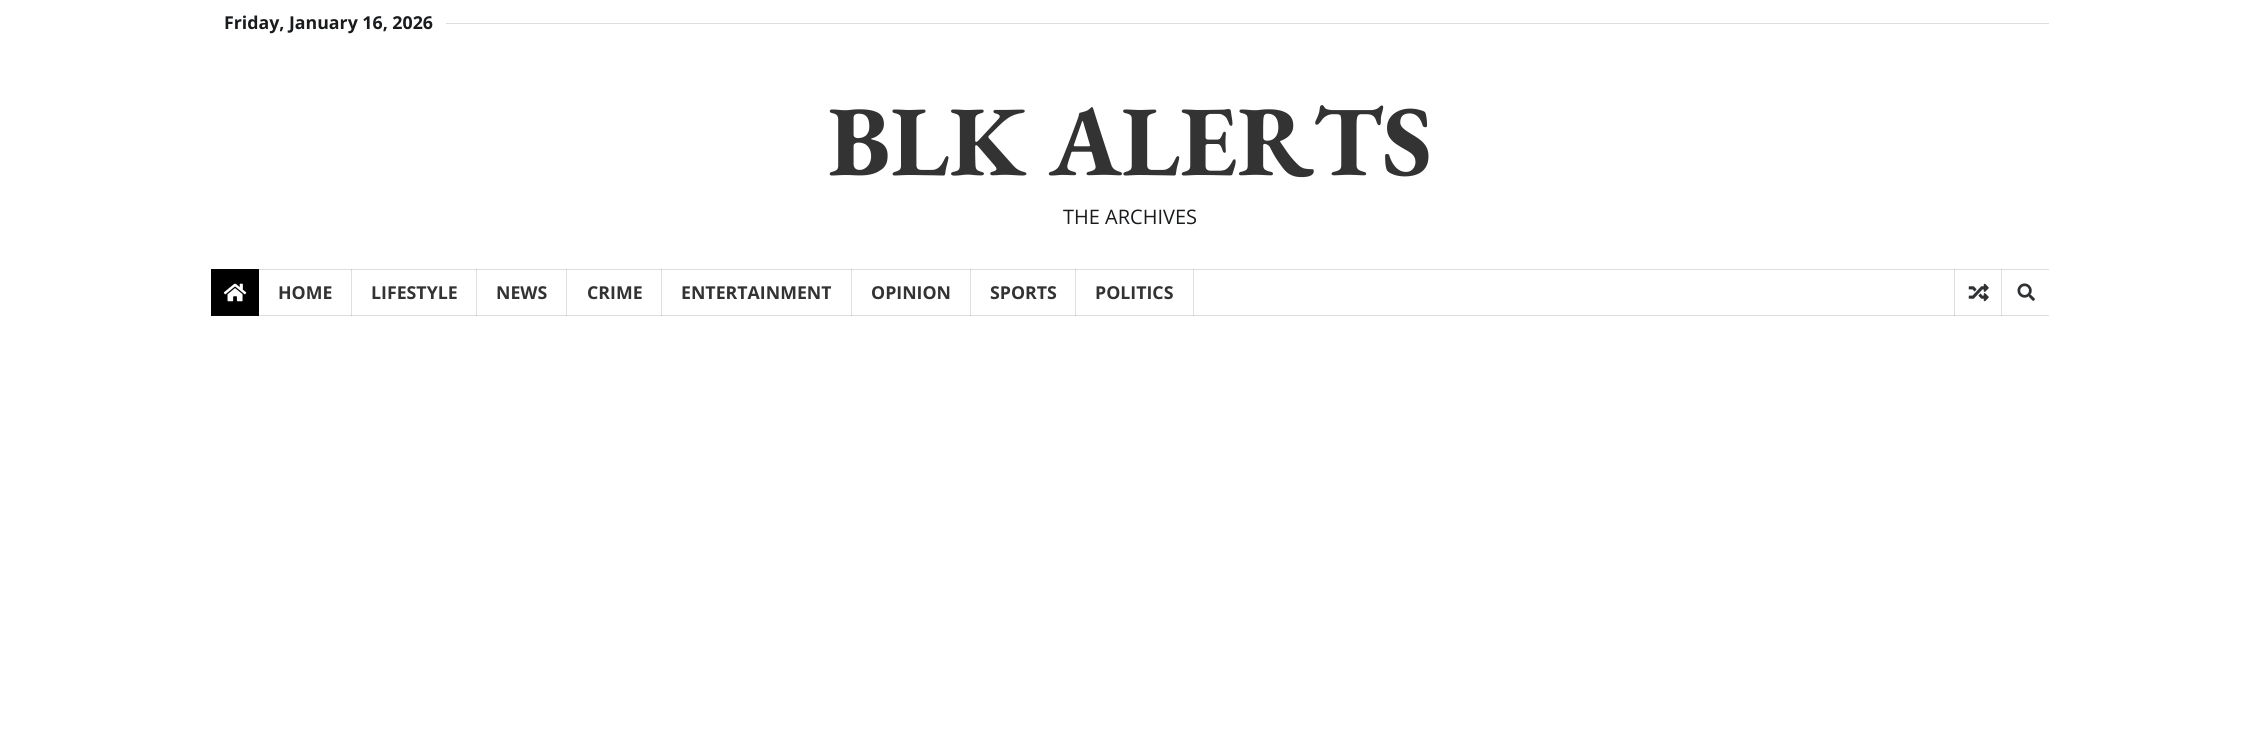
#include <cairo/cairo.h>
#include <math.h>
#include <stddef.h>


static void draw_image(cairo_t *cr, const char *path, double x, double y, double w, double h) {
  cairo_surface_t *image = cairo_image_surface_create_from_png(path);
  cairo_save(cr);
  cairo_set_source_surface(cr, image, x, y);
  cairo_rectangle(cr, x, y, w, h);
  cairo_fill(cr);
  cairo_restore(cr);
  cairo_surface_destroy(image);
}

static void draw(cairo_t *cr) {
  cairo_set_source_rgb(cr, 1, 1, 1);
  cairo_paint(cr);
  cairo_set_source_rgb(cr, 222 / 255.0, 222 / 255.0, 222 / 255.0);
  cairo_rectangle(cr, 259, 315, 1790, 1);
  cairo_fill(cr);
  cairo_set_source_rgb(cr, 224 / 255.0, 224 / 255.0, 224 / 255.0);
  cairo_rectangle(cr, 2001, 269, 1, 47);
  cairo_fill(cr);
  cairo_set_source_rgb(cr, 195 / 255.0, 195 / 255.0, 196 / 255.0);
  cairo_rectangle(cr, 2001, 315, 1, 1);
  cairo_fill(cr);
  cairo_set_source_rgb(cr, 224 / 255.0, 224 / 255.0, 224 / 255.0);
  cairo_rectangle(cr, 1193, 269, 1, 47);
  cairo_fill(cr);
  cairo_set_source_rgb(cr, 195 / 255.0, 195 / 255.0, 196 / 255.0);
  cairo_rectangle(cr, 1193, 315, 1, 1);
  cairo_fill(cr);
  cairo_set_source_rgb(cr, 224 / 255.0, 224 / 255.0, 224 / 255.0);
  cairo_rectangle(cr, 1075, 269, 1, 47);
  cairo_fill(cr);
  cairo_set_source_rgb(cr, 195 / 255.0, 195 / 255.0, 196 / 255.0);
  cairo_rectangle(cr, 1075, 315, 1, 1);
  cairo_fill(cr);
  cairo_set_source_rgb(cr, 224 / 255.0, 224 / 255.0, 224 / 255.0);
  cairo_rectangle(cr, 970, 269, 1, 47);
  cairo_fill(cr);
  cairo_set_source_rgb(cr, 195 / 255.0, 195 / 255.0, 196 / 255.0);
  cairo_rectangle(cr, 970, 315, 1, 1);
  cairo_fill(cr);
  cairo_set_source_rgb(cr, 224 / 255.0, 224 / 255.0, 224 / 255.0);
  cairo_rectangle(cr, 851, 269, 1, 47);
  cairo_fill(cr);
  cairo_set_source_rgb(cr, 195 / 255.0, 195 / 255.0, 196 / 255.0);
  cairo_rectangle(cr, 851, 315, 1, 1);
  cairo_fill(cr);
  cairo_set_source_rgb(cr, 224 / 255.0, 224 / 255.0, 224 / 255.0);
  cairo_rectangle(cr, 661, 269, 1, 47);
  cairo_fill(cr);
  cairo_set_source_rgb(cr, 195 / 255.0, 195 / 255.0, 196 / 255.0);
  cairo_rectangle(cr, 661, 315, 1, 1);
  cairo_fill(cr);
  cairo_set_source_rgb(cr, 224 / 255.0, 224 / 255.0, 224 / 255.0);
  cairo_rectangle(cr, 566, 269, 1, 47);
  cairo_fill(cr);
  cairo_set_source_rgb(cr, 195 / 255.0, 195 / 255.0, 196 / 255.0);
  cairo_rectangle(cr, 566, 315, 1, 1);
  cairo_fill(cr);
  cairo_set_source_rgb(cr, 224 / 255.0, 224 / 255.0, 224 / 255.0);
  cairo_rectangle(cr, 476, 269, 1, 47);
  cairo_fill(cr);
  cairo_set_source_rgb(cr, 195 / 255.0, 195 / 255.0, 196 / 255.0);
  cairo_rectangle(cr, 476, 315, 1, 1);
  cairo_fill(cr);
  cairo_set_source_rgb(cr, 224 / 255.0, 224 / 255.0, 224 / 255.0);
  cairo_rectangle(cr, 351, 269, 1, 47);
  cairo_fill(cr);
  cairo_set_source_rgb(cr, 195 / 255.0, 195 / 255.0, 196 / 255.0);
  cairo_rectangle(cr, 351, 315, 1, 1);
  cairo_fill(cr);
  cairo_set_source_rgb(cr, 222 / 255.0, 222 / 255.0, 222 / 255.0);
  cairo_rectangle(cr, 259, 269, 1790, 1);
  cairo_fill(cr);
  cairo_set_source_rgb(cr, 195 / 255.0, 196 / 255.0, 196 / 255.0);
  cairo_rectangle(cr, 2001, 269, 1, 1);
  cairo_fill(cr);
  cairo_rectangle(cr, 1193, 269, 1, 1);
  cairo_fill(cr);
  cairo_rectangle(cr, 1075, 269, 1, 1);
  cairo_fill(cr);
  cairo_rectangle(cr, 970, 269, 1, 1);
  cairo_fill(cr);
  cairo_rectangle(cr, 851, 269, 1, 1);
  cairo_fill(cr);
  cairo_rectangle(cr, 661, 269, 1, 1);
  cairo_fill(cr);
  cairo_rectangle(cr, 566, 269, 1, 1);
  cairo_fill(cr);
  cairo_rectangle(cr, 476, 269, 1, 1);
  cairo_fill(cr);
  cairo_rectangle(cr, 351, 269, 1, 1);
  cairo_fill(cr);
  cairo_set_source_rgb(cr, 222 / 255.0, 222 / 255.0, 222 / 255.0);
  cairo_rectangle(cr, 446, 23, 1603, 1);
  cairo_fill(cr);
  cairo_set_source_rgb(cr, 0, 0, 0);
  cairo_rectangle(cr, 211, 270, 48, 45);
  cairo_fill(cr);
  cairo_set_source_rgb(cr, 5 / 255.0, 5 / 255.0, 5 / 255.0);
  cairo_rectangle(cr, 211, 315, 48, 1);
  cairo_fill(cr);
  cairo_rectangle(cr, 211, 269, 48, 1);
  cairo_fill(cr);
  draw_image(cr, "images/1.png", 223, 283, 24, 19);
  cairo_set_source_rgb(cr, 222 / 255.0, 222 / 255.0, 222 / 255.0);
  cairo_rectangle(cr, 1954, 269, 1, 47);
  cairo_fill(cr);
  cairo_set_source_rgb(cr, 194 / 255.0, 194 / 255.0, 194 / 255.0);
  cairo_rectangle(cr, 1954, 315, 1, 1);
  cairo_fill(cr);
  cairo_rectangle(cr, 1954, 269, 1, 1);
  cairo_fill(cr);
  draw_image(cr, "images/2.png", 1968, 283, 21, 19);
  draw_image(cr, "images/3.png", 2017, 283, 18, 18);
  cairo_select_font_face(cr, "Open Sans", CAIRO_FONT_SLANT_NORMAL, CAIRO_FONT_WEIGHT_BOLD);
  cairo_set_font_size(cr, 17.75);
  cairo_set_source_rgb(cr, 25 / 255.0, 27 / 255.0, 29 / 255.0);
  cairo_move_to(cr, 224, 29);
  cairo_show_text(cr, "Friday, January 16, 2026");
  cairo_select_font_face(cr, "EB Garamond", CAIRO_FONT_SLANT_NORMAL, CAIRO_FONT_WEIGHT_BOLD);
  cairo_set_font_size(cr, 100);
  cairo_set_source_rgb(cr, 51 / 255.0, 51 / 255.0, 51 / 255.0);
  cairo_move_to(cr, 828, 175);
  cairo_show_text(cr, "BLK ALERTS");
  cairo_select_font_face(cr, "Open Sans", CAIRO_FONT_SLANT_NORMAL, CAIRO_FONT_WEIGHT_NORMAL);
  cairo_set_font_size(cr, 20);
  cairo_set_source_rgb(cr, 25 / 255.0, 27 / 255.0, 29 / 255.0);
  cairo_move_to(cr, 1063, 224);
  cairo_show_text(cr, "THE ARCHIVES");
  cairo_select_font_face(cr, "Open Sans", CAIRO_FONT_SLANT_NORMAL, CAIRO_FONT_WEIGHT_BOLD);
  cairo_set_font_size(cr, 17.75);
  cairo_set_source_rgb(cr, 51 / 255.0, 51 / 255.0, 51 / 255.0);
  cairo_move_to(cr, 278, 299);
  cairo_show_text(cr, "HOME");
  cairo_move_to(cr, 371, 299);
  cairo_show_text(cr, "LIFESTYLE");
  cairo_move_to(cr, 496, 299);
  cairo_show_text(cr, "NEWS");
  cairo_move_to(cr, 587, 299);
  cairo_show_text(cr, "CRIME");
  cairo_move_to(cr, 681, 299);
  cairo_show_text(cr, "ENTERTAINMENT");
  cairo_move_to(cr, 871, 299);
  cairo_show_text(cr, "OPINION");
  cairo_move_to(cr, 990, 299);
  cairo_show_text(cr, "SPORTS");
  cairo_move_to(cr, 1095, 299);
  cairo_show_text(cr, "POLITICS");
}

int main(void) {
  cairo_surface_t *surface = cairo_image_surface_create(CAIRO_FORMAT_RGB24, 2259, 738);
  cairo_t *cr = cairo_create(surface);
  cairo_font_options_t *options = cairo_font_options_create();
  cairo_font_options_set_hint_metrics(options, CAIRO_HINT_METRICS_OFF);
  cairo_font_options_set_hint_style(options, CAIRO_HINT_STYLE_NONE);
  cairo_set_font_options(cr, options);
  cairo_set_miter_limit(cr, 4);
  draw(cr);
  cairo_surface_write_to_png(surface, "out.png");
  cairo_font_options_destroy(options);
  cairo_destroy(cr);
  cairo_surface_destroy(surface);
  return 0;
}
